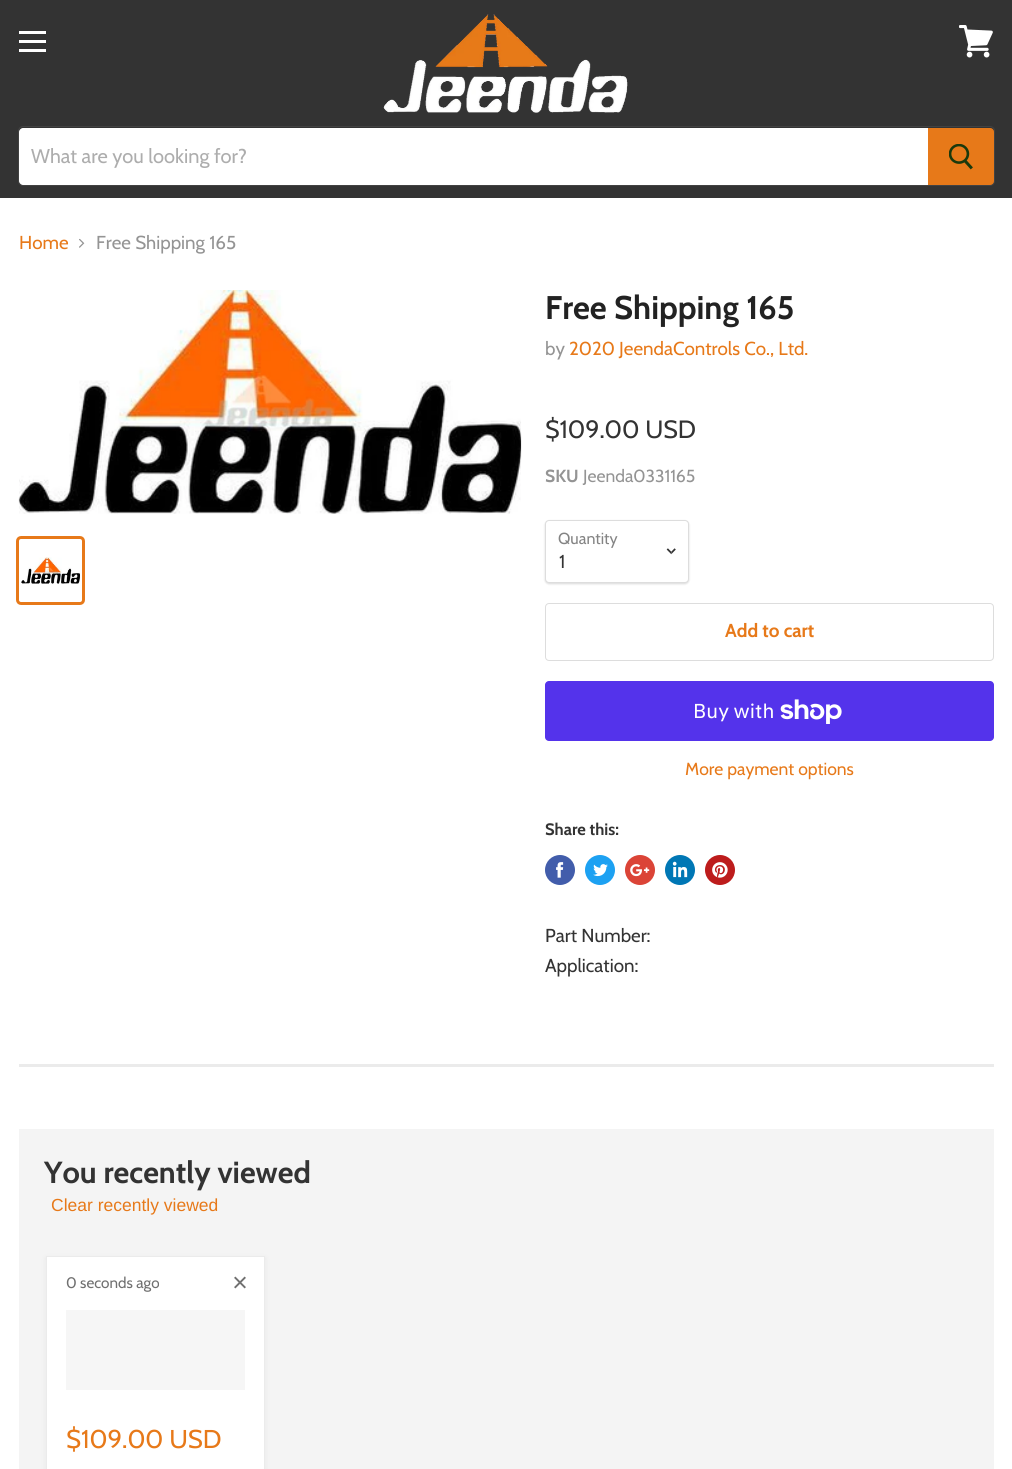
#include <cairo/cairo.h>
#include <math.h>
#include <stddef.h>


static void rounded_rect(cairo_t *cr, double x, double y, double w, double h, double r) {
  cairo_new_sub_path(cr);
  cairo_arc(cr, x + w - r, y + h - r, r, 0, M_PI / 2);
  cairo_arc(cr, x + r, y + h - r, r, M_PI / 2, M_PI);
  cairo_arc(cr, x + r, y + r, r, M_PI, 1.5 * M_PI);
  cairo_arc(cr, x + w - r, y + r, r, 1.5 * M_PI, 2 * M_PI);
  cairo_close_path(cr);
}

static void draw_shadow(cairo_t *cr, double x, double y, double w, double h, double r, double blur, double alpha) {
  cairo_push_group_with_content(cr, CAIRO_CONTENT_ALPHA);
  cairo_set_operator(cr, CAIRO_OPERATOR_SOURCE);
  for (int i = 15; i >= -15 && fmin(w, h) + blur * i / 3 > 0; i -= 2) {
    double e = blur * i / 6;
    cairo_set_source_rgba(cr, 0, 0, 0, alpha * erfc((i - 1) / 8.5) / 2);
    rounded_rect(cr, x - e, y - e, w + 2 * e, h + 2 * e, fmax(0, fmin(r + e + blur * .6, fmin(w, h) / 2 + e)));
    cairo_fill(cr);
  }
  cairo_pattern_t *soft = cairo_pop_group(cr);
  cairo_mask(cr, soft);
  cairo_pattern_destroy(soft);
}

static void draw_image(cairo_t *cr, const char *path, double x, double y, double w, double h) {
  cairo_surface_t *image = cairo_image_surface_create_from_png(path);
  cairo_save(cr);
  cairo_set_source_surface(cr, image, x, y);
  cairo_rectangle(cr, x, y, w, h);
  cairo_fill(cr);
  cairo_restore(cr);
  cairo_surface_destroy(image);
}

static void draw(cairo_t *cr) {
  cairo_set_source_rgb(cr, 1, 1, 1);
  cairo_paint(cr);
  cairo_set_source_rgb(cr, 51 / 255.0, 51 / 255.0, 51 / 255.0);
  cairo_rectangle(cr, 0, 0, 1012, 198);
  cairo_fill(cr);
  cairo_set_source_rgb(cr, 1, 1, 1);
  cairo_rectangle(cr, 19, 31, 27, 3);
  cairo_fill(cr);
  cairo_rectangle(cr, 19, 40, 27, 3);
  cairo_fill(cr);
  cairo_rectangle(cr, 19, 49, 27, 3);
  cairo_fill(cr);
  draw_image(cr, "images/1.png", 959, 25, 34, 33);
  draw_image(cr, "images/2.png", 383, 14, 245, 99);
  rounded_rect(cr, 18.5, 126.5, 976, 59, 4.5);
  cairo_set_source_rgb(cr, 66 / 255.0, 66 / 255.0, 66 / 255.0);
  cairo_set_line_width(cr, 1);
  cairo_stroke(cr);
  cairo_set_source_rgb(cr, 1, 1, 1);
  cairo_new_path(cr);
  cairo_move_to(cr, 23, 128);
  cairo_line_to(cr, 928, 128);
  cairo_line_to(cr, 928, 185);
  cairo_line_to(cr, 23, 185);
  cairo_curve_to(cr, 21, 185, 19, 183, 19, 181);
  cairo_line_to(cr, 19, 132);
  cairo_curve_to(cr, 19, 130, 21, 128, 23, 128);
  cairo_close_path(cr);
  cairo_fill(cr);
  cairo_set_source_rgb(cr, 231 / 255.0, 121 / 255.0, 25 / 255.0);
  cairo_new_path(cr);
  cairo_move_to(cr, 928.5, 128.5);
  cairo_line_to(cr, 990, 128.5);
  cairo_curve_to(cr, 992, 128.5, 993.5, 130, 993.5, 132);
  cairo_line_to(cr, 993.5, 181);
  cairo_curve_to(cr, 993.5, 183, 992, 184.5, 990, 184.5);
  cairo_line_to(cr, 928.5, 184.5);
  cairo_close_path(cr);
  cairo_fill_preserve(cr);
  cairo_stroke(cr);
  draw_image(cr, "images/3.png", 949, 144, 24, 26);
  draw_image(cr, "images/4.png", 79, 238, 6, 10);
  draw_image(cr, "images/5.png", 18, 290, 504, 224);
  rounded_rect(cr, 17.5, 537.5, 66, 66, 3.5);
  cairo_set_line_width(cr, 3);
  cairo_stroke(cr);
  draw_image(cr, "images/6.png", 21, 557, 59, 27);
  cairo_set_source_rgb(cr, 0, 0, 0);
  draw_shadow(cr, 545, 521, 144, 63, 4, 1, 0.15);
  cairo_set_source_rgb(cr, 1, 1, 1);
  rounded_rect(cr, 545.5, 520.5, 143, 62, 3.5);
  cairo_fill_preserve(cr);
  cairo_set_source_rgb(cr, 221 / 255.0, 221 / 255.0, 221 / 255.0);
  cairo_set_line_width(cr, 1);
  cairo_stroke(cr);
  draw_image(cr, "images/7.png", 666, 548, 10, 7);
  rounded_rect(cr, 545.5, 603.5, 448, 57, 3.5);
  cairo_stroke(cr);
  cairo_set_source_rgb(cr, 84 / 255.0, 51 / 255.0, 235 / 255.0);
  rounded_rect(cr, 545, 681, 449, 60, 4);
  cairo_fill(cr);
  draw_image(cr, "images/8.png", 780, 699, 62, 25);
  cairo_set_source_rgb(cr, 66 / 255.0, 93 / 255.0, 171 / 255.0);
  cairo_arc(cr, 560, 870, 15, 0, 2 * M_PI);
  cairo_fill(cr);
  draw_image(cr, "images/9.png", 556, 862, 8, 16);
  cairo_set_source_rgb(cr, 29 / 255.0, 161 / 255.0, 242 / 255.0);
  cairo_arc(cr, 600, 870, 15, 0, 2 * M_PI);
  cairo_fill(cr);
  draw_image(cr, "images/10.png", 593, 864, 15, 13);
  cairo_set_source_rgb(cr, 219 / 255.0, 68 / 255.0, 55 / 255.0);
  cairo_arc(cr, 640, 870, 15, 0, 2 * M_PI);
  cairo_fill(cr);
  draw_image(cr, "images/11.png", 630, 864, 20, 13);
  cairo_set_source_rgb(cr, 0, 119 / 255.0, 181 / 255.0);
  cairo_arc(cr, 680, 870, 15, 0, 2 * M_PI);
  cairo_fill(cr);
  draw_image(cr, "images/12.png", 672, 861, 16, 17);
  cairo_set_source_rgb(cr, 189 / 255.0, 28 / 255.0, 28 / 255.0);
  cairo_arc(cr, 720, 870, 15, 0, 2 * M_PI);
  cairo_fill(cr);
  draw_image(cr, "images/13.png", 712, 862, 16, 16);
  cairo_set_source_rgba(cr, 127 / 255.0, 127 / 255.0, 127 / 255.0, 0.16);
  cairo_rectangle(cr, 19, 1064, 975, 3);
  cairo_fill(cr);
  cairo_set_source_rgb(cr, 244 / 255.0, 244 / 255.0, 244 / 255.0);
  cairo_rectangle(cr, 19, 1129, 975, 340);
  cairo_fill(cr);
  cairo_set_source_rgb(cr, 127 / 255.0, 127 / 255.0, 127 / 255.0);
  draw_shadow(cr, 46, 1258, 219, 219, 0, 2.5, 0.11);
  cairo_set_source_rgb(cr, 1, 1, 1);
  cairo_rectangle(cr, 46.5, 1256.5, 218, 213);
  cairo_fill_preserve(cr);
  cairo_set_source_rgb(cr, 235 / 255.0, 235 / 255.0, 235 / 255.0);
  cairo_stroke(cr);
  draw_image(cr, "images/14.png", 234, 1276, 12, 13);
  cairo_set_source_rgb(cr, 246 / 255.0, 246 / 255.0, 246 / 255.0);
  cairo_rectangle(cr, 66, 1310, 179, 80);
  cairo_fill(cr);
  cairo_select_font_face(cr, "Cabin", CAIRO_FONT_SLANT_NORMAL, CAIRO_FONT_WEIGHT_NORMAL);
  cairo_set_font_size(cr, 20);
  cairo_set_source_rgb(cr, 173 / 255.0, 173 / 255.0, 173 / 255.0);
  cairo_move_to(cr, 31, 163);
  cairo_show_text(cr, "What are you looking for?");
  cairo_set_font_size(cr, 18.75);
  cairo_set_source_rgb(cr, 231 / 255.0, 121 / 255.0, 25 / 255.0);
  cairo_move_to(cr, 19, 249);
  cairo_show_text(cr, "Home");
  cairo_set_source_rgb(cr, 148 / 255.0, 148 / 255.0, 148 / 255.0);
  cairo_move_to(cr, 96, 249);
  cairo_show_text(cr, "Free Shipping 165");
  cairo_select_font_face(cr, "Cabin", CAIRO_FONT_SLANT_NORMAL, CAIRO_FONT_WEIGHT_BOLD);
  cairo_set_font_size(cr, 32.75);
  cairo_set_source_rgb(cr, 34 / 255.0, 34 / 255.0, 34 / 255.0);
  cairo_move_to(cr, 545, 319);
  cairo_show_text(cr, "Free Shipping 165");
  cairo_select_font_face(cr, "Cabin", CAIRO_FONT_SLANT_NORMAL, CAIRO_FONT_WEIGHT_NORMAL);
  cairo_set_font_size(cr, 18.75);
  cairo_set_source_rgb(cr, 148 / 255.0, 148 / 255.0, 148 / 255.0);
  cairo_move_to(cr, 545, 355);
  cairo_show_text(cr, "by");
  cairo_set_source_rgb(cr, 231 / 255.0, 121 / 255.0, 25 / 255.0);
  cairo_move_to(cr, 569, 355);
  cairo_show_text(cr, "2020 JeendaControls Co., Ltd.");
  cairo_set_font_size(cr, 25);
  cairo_set_source_rgb(cr, 51 / 255.0, 51 / 255.0, 51 / 255.0);
  cairo_move_to(cr, 545, 438);
  cairo_show_text(cr, "$109.00 USD");
  cairo_select_font_face(cr, "Cabin", CAIRO_FONT_SLANT_NORMAL, CAIRO_FONT_WEIGHT_BOLD);
  cairo_set_font_size(cr, 17.5);
  cairo_set_source_rgb(cr, 148 / 255.0, 148 / 255.0, 148 / 255.0);
  cairo_move_to(cr, 545, 482);
  cairo_show_text(cr, "SKU");
  cairo_select_font_face(cr, "Cabin", CAIRO_FONT_SLANT_NORMAL, CAIRO_FONT_WEIGHT_NORMAL);
  cairo_move_to(cr, 583, 482);
  cairo_show_text(cr, "Jeenda0331165");
  cairo_set_font_size(cr, 16);
  cairo_set_source_rgb(cr, 132 / 255.0, 132 / 255.0, 132 / 255.0);
  cairo_move_to(cr, 558, 544);
  cairo_show_text(cr, "Quantity");
  cairo_set_font_size(cr, 18.75);
  cairo_set_source_rgb(cr, 51 / 255.0, 51 / 255.0, 51 / 255.0);
  cairo_move_to(cr, 559, 568);
  cairo_show_text(cr, "1");
  cairo_select_font_face(cr, "Cabin", CAIRO_FONT_SLANT_NORMAL, CAIRO_FONT_WEIGHT_BOLD);
  cairo_set_source_rgb(cr, 231 / 255.0, 121 / 255.0, 25 / 255.0);
  cairo_move_to(cr, 725, 637);
  cairo_show_text(cr, "Add to cart");
  cairo_select_font_face(cr, "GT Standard", CAIRO_FONT_SLANT_NORMAL, CAIRO_FONT_WEIGHT_NORMAL);
  cairo_set_font_size(cr, 20);
  cairo_set_source_rgb(cr, 1, 1, 1);
  cairo_move_to(cr, 693, 718);
  cairo_show_text(cr, "Buy with");
  cairo_select_font_face(cr, "Cabin", CAIRO_FONT_SLANT_NORMAL, CAIRO_FONT_WEIGHT_NORMAL);
  cairo_set_font_size(cr, 17.5);
  cairo_set_source_rgb(cr, 231 / 255.0, 121 / 255.0, 25 / 255.0);
  cairo_move_to(cr, 685, 775);
  cairo_show_text(cr, "More payment options");
  cairo_select_font_face(cr, "Cabin", CAIRO_FONT_SLANT_NORMAL, CAIRO_FONT_WEIGHT_BOLD);
  cairo_set_font_size(cr, 16.5);
  cairo_set_source_rgb(cr, 51 / 255.0, 51 / 255.0, 51 / 255.0);
  cairo_move_to(cr, 545, 835);
  cairo_show_text(cr, "Share this:");
  cairo_select_font_face(cr, "Cabin", CAIRO_FONT_SLANT_NORMAL, CAIRO_FONT_WEIGHT_NORMAL);
  cairo_set_font_size(cr, 18.75);
  cairo_move_to(cr, 545, 942);
  cairo_show_text(cr, "Part Number:");
  cairo_move_to(cr, 545, 972);
  cairo_show_text(cr, "Application:");
  cairo_select_font_face(cr, "Cabin", CAIRO_FONT_SLANT_NORMAL, CAIRO_FONT_WEIGHT_BOLD);
  cairo_set_font_size(cr, 30.5);
  cairo_move_to(cr, 44, 1183);
  cairo_show_text(cr, "You recently viewed");
  cairo_select_font_face(cr, "Liberation Sans", CAIRO_FONT_SLANT_NORMAL, CAIRO_FONT_WEIGHT_NORMAL);
  cairo_set_font_size(cr, 17.5);
  cairo_set_source_rgb(cr, 231 / 255.0, 121 / 255.0, 25 / 255.0);
  cairo_move_to(cr, 51, 1211);
  cairo_show_text(cr, "Clear recently viewed");
  cairo_select_font_face(cr, "Cabin", CAIRO_FONT_SLANT_NORMAL, CAIRO_FONT_WEIGHT_NORMAL);
  cairo_set_font_size(cr, 15.25);
  cairo_set_source_rgb(cr, 112 / 255.0, 112 / 255.0, 112 / 255.0);
  cairo_move_to(cr, 66, 1288);
  cairo_show_text(cr, "0 seconds ago");
  cairo_set_font_size(cr, 25.75);
  cairo_set_source_rgb(cr, 231 / 255.0, 121 / 255.0, 25 / 255.0);
  cairo_move_to(cr, 66, 1448);
  cairo_show_text(cr, "$109.00 USD");
}

int main(void) {
  cairo_surface_t *surface = cairo_image_surface_create(CAIRO_FORMAT_RGB24, 1012, 1469);
  cairo_t *cr = cairo_create(surface);
  cairo_font_options_t *options = cairo_font_options_create();
  cairo_font_options_set_hint_metrics(options, CAIRO_HINT_METRICS_OFF);
  cairo_font_options_set_hint_style(options, CAIRO_HINT_STYLE_NONE);
  cairo_set_font_options(cr, options);
  cairo_set_miter_limit(cr, 4);
  draw(cr);
  cairo_surface_write_to_png(surface, "out.png");
  cairo_font_options_destroy(options);
  cairo_destroy(cr);
  cairo_surface_destroy(surface);
  return 0;
}
